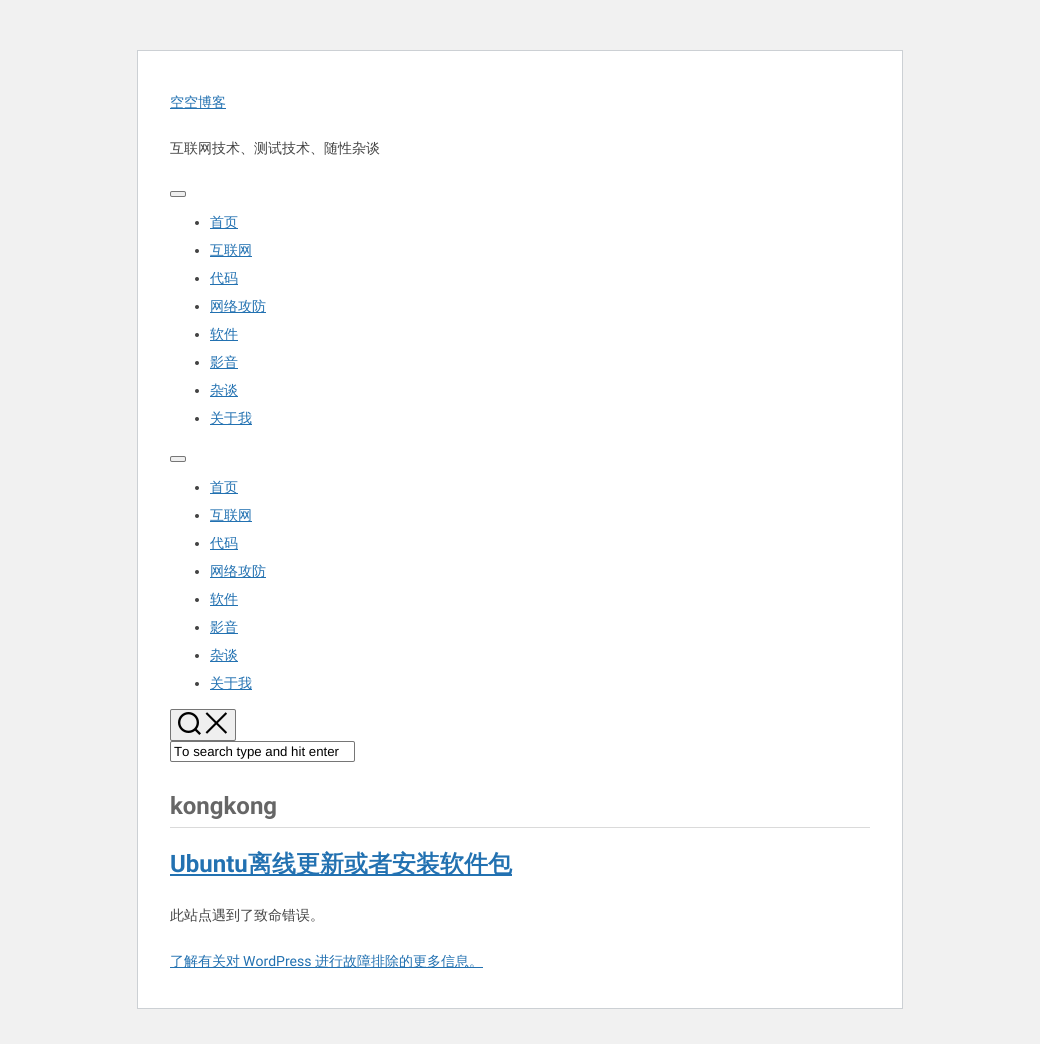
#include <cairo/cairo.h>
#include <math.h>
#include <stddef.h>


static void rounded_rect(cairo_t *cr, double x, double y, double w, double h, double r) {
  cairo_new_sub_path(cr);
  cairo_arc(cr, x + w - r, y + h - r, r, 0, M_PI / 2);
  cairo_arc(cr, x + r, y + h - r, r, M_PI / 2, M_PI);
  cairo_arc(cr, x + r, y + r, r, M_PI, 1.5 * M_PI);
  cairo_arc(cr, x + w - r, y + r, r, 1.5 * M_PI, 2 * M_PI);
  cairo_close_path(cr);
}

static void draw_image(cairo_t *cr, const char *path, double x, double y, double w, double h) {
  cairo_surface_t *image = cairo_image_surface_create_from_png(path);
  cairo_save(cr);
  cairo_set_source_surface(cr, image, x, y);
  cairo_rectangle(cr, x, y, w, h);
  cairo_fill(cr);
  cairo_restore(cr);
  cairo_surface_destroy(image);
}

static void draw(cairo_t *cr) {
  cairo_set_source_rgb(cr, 241 / 255.0, 241 / 255.0, 241 / 255.0);
  cairo_paint(cr);
  cairo_set_source_rgb(cr, 1, 1, 1);
  cairo_rectangle(cr, 137.5, 50.5, 765, 958);
  cairo_fill_preserve(cr);
  cairo_set_source_rgb(cr, 204 / 255.0, 208 / 255.0, 212 / 255.0);
  cairo_set_line_width(cr, 1);
  cairo_stroke(cr);
  cairo_set_source_rgb(cr, 34 / 255.0, 113 / 255.0, 177 / 255.0);
  cairo_rectangle(cr, 170, 108, 56, 1);
  cairo_fill(cr);
  cairo_set_source_rgb(cr, 239 / 255.0, 239 / 255.0, 239 / 255.0);
  rounded_rect(cr, 170.5, 191.5, 15, 5, 1.5);
  cairo_fill_preserve(cr);
  cairo_set_source_rgb(cr, 118 / 255.0, 118 / 255.0, 118 / 255.0);
  cairo_stroke(cr);
  cairo_set_source_rgb(cr, 68 / 255.0, 68 / 255.0, 68 / 255.0);
  cairo_arc(cr, 197, 223, 2, 0, 2 * M_PI);
  cairo_fill(cr);
  cairo_set_source_rgb(cr, 34 / 255.0, 113 / 255.0, 177 / 255.0);
  cairo_rectangle(cr, 210, 228, 28, 1);
  cairo_fill(cr);
  cairo_set_source_rgb(cr, 68 / 255.0, 68 / 255.0, 68 / 255.0);
  cairo_arc(cr, 197, 251, 2, 0, 2 * M_PI);
  cairo_fill(cr);
  cairo_set_source_rgb(cr, 34 / 255.0, 113 / 255.0, 177 / 255.0);
  cairo_rectangle(cr, 210, 256, 42, 1);
  cairo_fill(cr);
  cairo_set_source_rgb(cr, 68 / 255.0, 68 / 255.0, 68 / 255.0);
  cairo_arc(cr, 197, 279, 2, 0, 2 * M_PI);
  cairo_fill(cr);
  cairo_set_source_rgb(cr, 34 / 255.0, 113 / 255.0, 177 / 255.0);
  cairo_rectangle(cr, 210, 284, 28, 1);
  cairo_fill(cr);
  cairo_set_source_rgb(cr, 68 / 255.0, 68 / 255.0, 68 / 255.0);
  cairo_arc(cr, 197, 307, 2, 0, 2 * M_PI);
  cairo_fill(cr);
  cairo_set_source_rgb(cr, 34 / 255.0, 113 / 255.0, 177 / 255.0);
  cairo_rectangle(cr, 210, 312, 56, 1);
  cairo_fill(cr);
  cairo_set_source_rgb(cr, 68 / 255.0, 68 / 255.0, 68 / 255.0);
  cairo_arc(cr, 197, 335, 2, 0, 2 * M_PI);
  cairo_fill(cr);
  cairo_set_source_rgb(cr, 34 / 255.0, 113 / 255.0, 177 / 255.0);
  cairo_rectangle(cr, 210, 340, 28, 1);
  cairo_fill(cr);
  cairo_set_source_rgb(cr, 68 / 255.0, 68 / 255.0, 68 / 255.0);
  cairo_arc(cr, 197, 363, 2, 0, 2 * M_PI);
  cairo_fill(cr);
  cairo_set_source_rgb(cr, 34 / 255.0, 113 / 255.0, 177 / 255.0);
  cairo_rectangle(cr, 210, 368, 28, 1);
  cairo_fill(cr);
  cairo_set_source_rgb(cr, 68 / 255.0, 68 / 255.0, 68 / 255.0);
  cairo_arc(cr, 197, 391, 2, 0, 2 * M_PI);
  cairo_fill(cr);
  cairo_set_source_rgb(cr, 34 / 255.0, 113 / 255.0, 177 / 255.0);
  cairo_rectangle(cr, 210, 396, 28, 1);
  cairo_fill(cr);
  cairo_set_source_rgb(cr, 68 / 255.0, 68 / 255.0, 68 / 255.0);
  cairo_arc(cr, 197, 419, 2, 0, 2 * M_PI);
  cairo_fill(cr);
  cairo_set_source_rgb(cr, 34 / 255.0, 113 / 255.0, 177 / 255.0);
  cairo_rectangle(cr, 210, 424, 42, 1);
  cairo_fill(cr);
  cairo_set_source_rgb(cr, 239 / 255.0, 239 / 255.0, 239 / 255.0);
  rounded_rect(cr, 170.5, 456.5, 15, 5, 1.5);
  cairo_fill_preserve(cr);
  cairo_set_source_rgb(cr, 118 / 255.0, 118 / 255.0, 118 / 255.0);
  cairo_stroke(cr);
  cairo_set_source_rgb(cr, 68 / 255.0, 68 / 255.0, 68 / 255.0);
  cairo_arc(cr, 197, 488, 2, 0, 2 * M_PI);
  cairo_fill(cr);
  cairo_set_source_rgb(cr, 34 / 255.0, 113 / 255.0, 177 / 255.0);
  cairo_rectangle(cr, 210, 493, 28, 1);
  cairo_fill(cr);
  cairo_set_source_rgb(cr, 68 / 255.0, 68 / 255.0, 68 / 255.0);
  cairo_arc(cr, 197, 516, 2, 0, 2 * M_PI);
  cairo_fill(cr);
  cairo_set_source_rgb(cr, 34 / 255.0, 113 / 255.0, 177 / 255.0);
  cairo_rectangle(cr, 210, 521, 42, 1);
  cairo_fill(cr);
  cairo_set_source_rgb(cr, 68 / 255.0, 68 / 255.0, 68 / 255.0);
  cairo_arc(cr, 197, 544, 2, 0, 2 * M_PI);
  cairo_fill(cr);
  cairo_set_source_rgb(cr, 34 / 255.0, 113 / 255.0, 177 / 255.0);
  cairo_rectangle(cr, 210, 549, 28, 1);
  cairo_fill(cr);
  cairo_set_source_rgb(cr, 68 / 255.0, 68 / 255.0, 68 / 255.0);
  cairo_arc(cr, 197, 572, 2, 0, 2 * M_PI);
  cairo_fill(cr);
  cairo_set_source_rgb(cr, 34 / 255.0, 113 / 255.0, 177 / 255.0);
  cairo_rectangle(cr, 210, 577, 56, 1);
  cairo_fill(cr);
  cairo_set_source_rgb(cr, 68 / 255.0, 68 / 255.0, 68 / 255.0);
  cairo_arc(cr, 197, 600, 2, 0, 2 * M_PI);
  cairo_fill(cr);
  cairo_set_source_rgb(cr, 34 / 255.0, 113 / 255.0, 177 / 255.0);
  cairo_rectangle(cr, 210, 605, 28, 1);
  cairo_fill(cr);
  cairo_set_source_rgb(cr, 68 / 255.0, 68 / 255.0, 68 / 255.0);
  cairo_arc(cr, 197, 628, 2, 0, 2 * M_PI);
  cairo_fill(cr);
  cairo_set_source_rgb(cr, 34 / 255.0, 113 / 255.0, 177 / 255.0);
  cairo_rectangle(cr, 210, 633, 28, 1);
  cairo_fill(cr);
  cairo_set_source_rgb(cr, 68 / 255.0, 68 / 255.0, 68 / 255.0);
  cairo_arc(cr, 197, 656, 2, 0, 2 * M_PI);
  cairo_fill(cr);
  cairo_set_source_rgb(cr, 34 / 255.0, 113 / 255.0, 177 / 255.0);
  cairo_rectangle(cr, 210, 661, 28, 1);
  cairo_fill(cr);
  cairo_set_source_rgb(cr, 68 / 255.0, 68 / 255.0, 68 / 255.0);
  cairo_arc(cr, 197, 684, 2, 0, 2 * M_PI);
  cairo_fill(cr);
  cairo_set_source_rgb(cr, 34 / 255.0, 113 / 255.0, 177 / 255.0);
  cairo_rectangle(cr, 210, 689, 42, 1);
  cairo_fill(cr);
  cairo_set_source_rgb(cr, 239 / 255.0, 239 / 255.0, 239 / 255.0);
  rounded_rect(cr, 170.5, 709.5, 65, 31, 1.5);
  cairo_fill_preserve(cr);
  cairo_set_source_rgb(cr, 118 / 255.0, 118 / 255.0, 118 / 255.0);
  cairo_stroke(cr);
  draw_image(cr, "images/1.png", 178, 712, 23, 23);
  draw_image(cr, "images/2.png", 205, 712, 22, 22);
  rounded_rect(cr, 170.5, 741.5, 184, 20, 1.5);
  cairo_stroke(cr);
  cairo_set_source_rgb(cr, 218 / 255.0, 218 / 255.0, 218 / 255.0);
  cairo_rectangle(cr, 170, 827, 700, 1);
  cairo_fill(cr);
  cairo_set_source_rgb(cr, 34 / 255.0, 113 / 255.0, 177 / 255.0);
  cairo_rectangle(cr, 170, 874, 342, 2);
  cairo_fill(cr);
  cairo_rectangle(cr, 170, 967, 313, 1);
  cairo_fill(cr);
  cairo_select_font_face(cr, "WenQuanYi Zen Hei Medium", CAIRO_FONT_SLANT_NORMAL, CAIRO_FONT_WEIGHT_NORMAL);
  cairo_set_font_size(cr, 14);
  cairo_move_to(cr, 170, 107);
  cairo_show_text(cr, "空空博客");
  cairo_set_source_rgb(cr, 68 / 255.0, 68 / 255.0, 68 / 255.0);
  cairo_move_to(cr, 170, 153);
  cairo_show_text(cr, "互联网技术、测试技术、随性杂谈");
  cairo_set_source_rgb(cr, 34 / 255.0, 113 / 255.0, 177 / 255.0);
  cairo_move_to(cr, 210, 227);
  cairo_show_text(cr, "首页");
  cairo_move_to(cr, 210, 255);
  cairo_show_text(cr, "互联网");
  cairo_move_to(cr, 210, 283);
  cairo_show_text(cr, "代码");
  cairo_move_to(cr, 210, 311);
  cairo_show_text(cr, "网络攻防");
  cairo_move_to(cr, 210, 339);
  cairo_show_text(cr, "软件");
  cairo_move_to(cr, 210, 367);
  cairo_show_text(cr, "影音");
  cairo_move_to(cr, 210, 395);
  cairo_show_text(cr, "杂谈");
  cairo_move_to(cr, 210, 423);
  cairo_show_text(cr, "关于我");
  cairo_move_to(cr, 210, 492);
  cairo_show_text(cr, "首页");
  cairo_move_to(cr, 210, 520);
  cairo_show_text(cr, "互联网");
  cairo_move_to(cr, 210, 548);
  cairo_show_text(cr, "代码");
  cairo_move_to(cr, 210, 576);
  cairo_show_text(cr, "网络攻防");
  cairo_move_to(cr, 210, 604);
  cairo_show_text(cr, "软件");
  cairo_move_to(cr, 210, 632);
  cairo_show_text(cr, "影音");
  cairo_move_to(cr, 210, 660);
  cairo_show_text(cr, "杂谈");
  cairo_move_to(cr, 210, 688);
  cairo_show_text(cr, "关于我");
  cairo_select_font_face(cr, "Liberation Sans", CAIRO_FONT_SLANT_NORMAL, CAIRO_FONT_WEIGHT_NORMAL);
  cairo_set_font_size(cr, 13.25);
  cairo_set_source_rgb(cr, 0, 0, 0);
  cairo_move_to(cr, 174, 756);
  cairo_show_text(cr, "To search type and hit enter");
  cairo_select_font_face(cr, "Roboto", CAIRO_FONT_SLANT_NORMAL, CAIRO_FONT_WEIGHT_BOLD);
  cairo_set_font_size(cr, 24);
  cairo_set_source_rgb(cr, 102 / 255.0, 102 / 255.0, 102 / 255.0);
  cairo_move_to(cr, 170, 814);
  cairo_show_text(cr, "kongkong");
  cairo_set_source_rgb(cr, 34 / 255.0, 113 / 255.0, 177 / 255.0);
  cairo_move_to(cr, 170, 872);
  cairo_show_text(cr, "Ubuntu");
  cairo_select_font_face(cr, "WenQuanYi Zen Hei", CAIRO_FONT_SLANT_NORMAL, CAIRO_FONT_WEIGHT_BOLD);
  cairo_move_to(cr, 248, 872);
  cairo_show_text(cr, "离线更新或者安装软件包");
  cairo_select_font_face(cr, "WenQuanYi Zen Hei Medium", CAIRO_FONT_SLANT_NORMAL, CAIRO_FONT_WEIGHT_NORMAL);
  cairo_set_font_size(cr, 14);
  cairo_set_source_rgb(cr, 68 / 255.0, 68 / 255.0, 68 / 255.0);
  cairo_move_to(cr, 170, 920);
  cairo_show_text(cr, "此站点遇到了致命错误。");
  cairo_set_source_rgb(cr, 34 / 255.0, 113 / 255.0, 177 / 255.0);
  cairo_move_to(cr, 170, 966);
  cairo_show_text(cr, "了解有关对");
  cairo_select_font_face(cr, "Roboto", CAIRO_FONT_SLANT_NORMAL, CAIRO_FONT_WEIGHT_NORMAL);
  cairo_move_to(cr, 243, 966);
  cairo_show_text(cr, "WordPress");
  cairo_select_font_face(cr, "WenQuanYi Zen Hei Medium", CAIRO_FONT_SLANT_NORMAL, CAIRO_FONT_WEIGHT_NORMAL);
  cairo_move_to(cr, 315, 966);
  cairo_show_text(cr, "进行故障排除的更多信息。");
}

int main(void) {
  cairo_surface_t *surface = cairo_image_surface_create(CAIRO_FORMAT_RGB24, 1040, 1044);
  cairo_t *cr = cairo_create(surface);
  cairo_font_options_t *options = cairo_font_options_create();
  cairo_font_options_set_hint_metrics(options, CAIRO_HINT_METRICS_OFF);
  cairo_font_options_set_hint_style(options, CAIRO_HINT_STYLE_NONE);
  cairo_set_font_options(cr, options);
  cairo_set_miter_limit(cr, 4);
  draw(cr);
  cairo_surface_write_to_png(surface, "out.png");
  cairo_font_options_destroy(options);
  cairo_destroy(cr);
  cairo_surface_destroy(surface);
  return 0;
}
